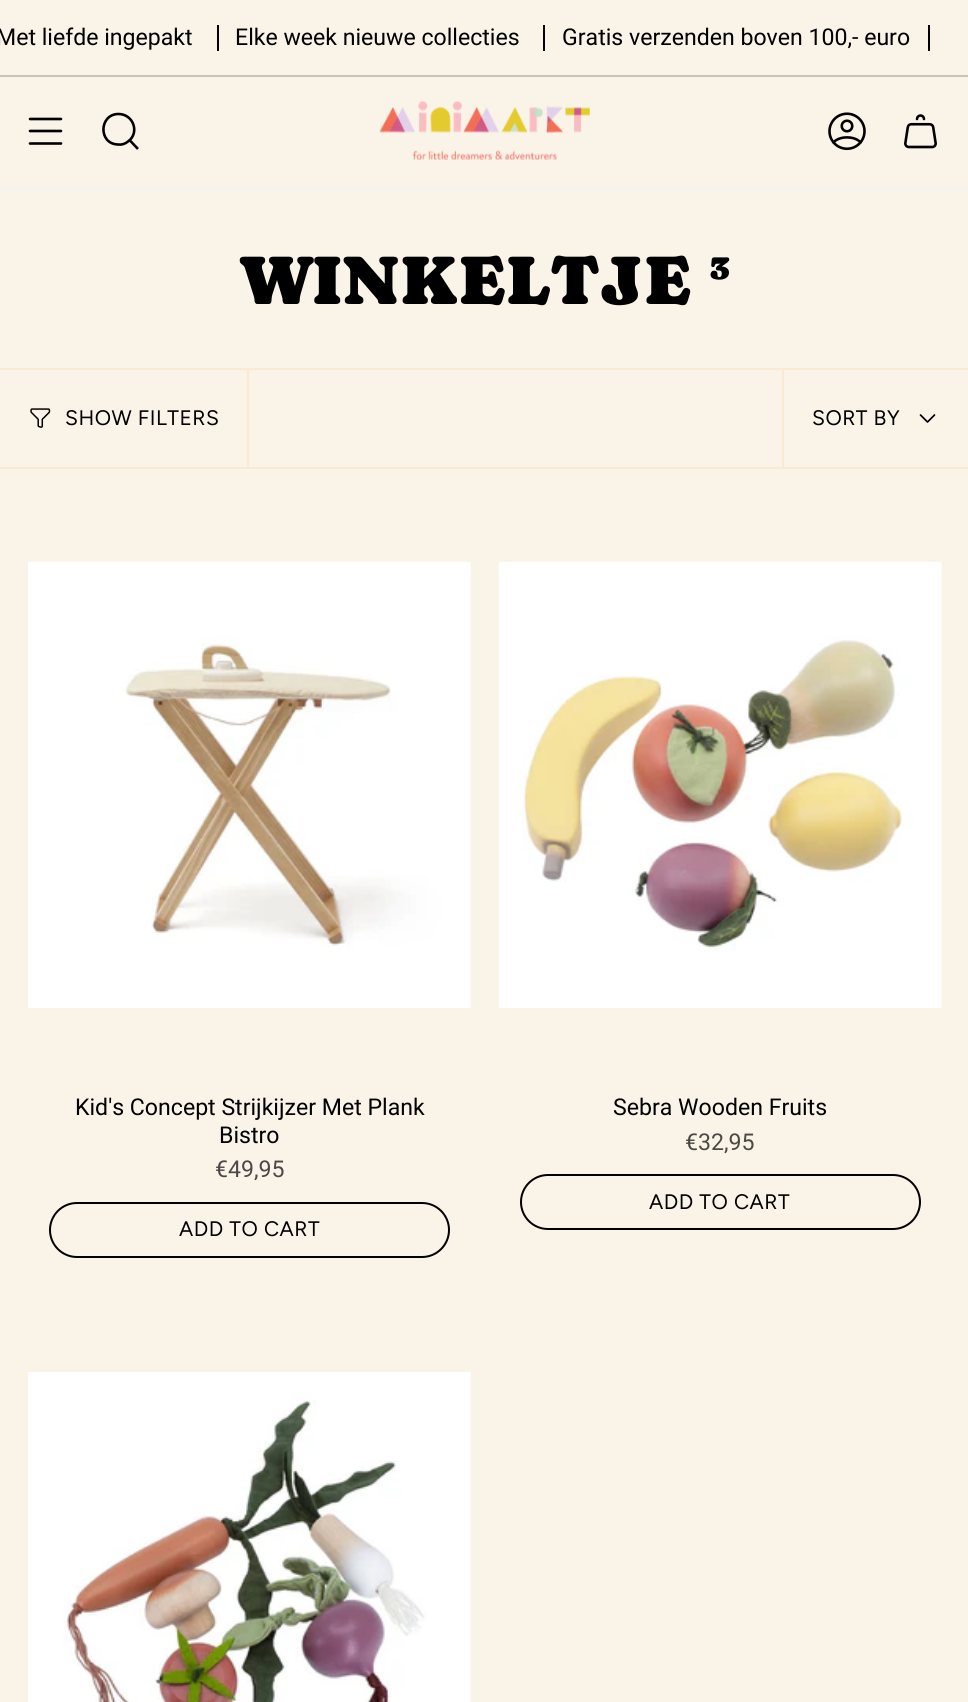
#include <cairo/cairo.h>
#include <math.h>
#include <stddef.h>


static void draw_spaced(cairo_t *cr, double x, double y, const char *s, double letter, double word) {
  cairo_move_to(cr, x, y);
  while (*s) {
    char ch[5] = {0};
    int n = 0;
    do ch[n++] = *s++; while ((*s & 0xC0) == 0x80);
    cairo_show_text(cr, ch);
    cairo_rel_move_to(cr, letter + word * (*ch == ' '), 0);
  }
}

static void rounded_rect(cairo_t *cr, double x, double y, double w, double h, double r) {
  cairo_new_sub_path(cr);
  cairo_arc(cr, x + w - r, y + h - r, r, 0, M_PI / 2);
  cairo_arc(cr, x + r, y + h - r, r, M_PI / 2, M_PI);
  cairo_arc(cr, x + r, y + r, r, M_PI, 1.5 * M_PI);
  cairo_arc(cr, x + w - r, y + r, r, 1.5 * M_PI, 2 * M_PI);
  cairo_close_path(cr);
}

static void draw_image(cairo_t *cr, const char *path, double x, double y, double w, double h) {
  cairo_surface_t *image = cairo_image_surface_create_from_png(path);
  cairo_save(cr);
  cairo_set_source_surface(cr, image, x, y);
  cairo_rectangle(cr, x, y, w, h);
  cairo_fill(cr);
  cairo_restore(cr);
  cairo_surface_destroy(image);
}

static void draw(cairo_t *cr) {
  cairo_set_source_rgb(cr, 250 / 255.0, 243 / 255.0, 232 / 255.0);
  cairo_paint(cr);
  cairo_set_source_rgb(cr, 0, 0, 0);
  cairo_rectangle(cr, 217, 25, 2, 26);
  cairo_fill(cr);
  cairo_rectangle(cr, 543, 25, 2, 26);
  cairo_fill(cr);
  cairo_rectangle(cr, 928, 25, 2, 26);
  cairo_fill(cr);
  cairo_set_source_rgb(cr, 200 / 255.0, 194 / 255.0, 186 / 255.0);
  cairo_rectangle(cr, 0, 75, 968, 2);
  cairo_fill(cr);
  cairo_new_path(cr);
  cairo_move_to(cr, 30, 119);
  cairo_line_to(cr, 61, 119);
  cairo_move_to(cr, 30, 131);
  cairo_line_to(cr, 61, 131);
  cairo_move_to(cr, 30, 143.5);
  cairo_line_to(cr, 61, 143.5);
  cairo_set_source_rgb(cr, 0, 0, 0);
  cairo_set_line_width(cr, 2.6);
  cairo_set_line_cap(cr, CAIRO_LINE_CAP_ROUND);
  cairo_set_line_join(cr, CAIRO_LINE_JOIN_ROUND);
  cairo_stroke(cr);
  cairo_new_path(cr);
  cairo_move_to(cr, 118.5, 114);
  cairo_curve_to(cr, 133.5, 114, 140, 133, 128, 141.5);
  cairo_curve_to(cr, 125, 144, 121.5, 145, 118, 144.5);
  cairo_curve_to(cr, 98, 144, 99, 114, 118.5, 114);
  cairo_close_path(cr);
  cairo_move_to(cr, 129.5, 140);
  cairo_line_to(cr, 138, 149);
  cairo_set_line_cap(cr, CAIRO_LINE_CAP_BUTT);
  cairo_set_line_join(cr, CAIRO_LINE_JOIN_MITER);
  cairo_stroke(cr);
  draw_image(cr, "images/1.png", 379, 101, 211, 59);
  draw_image(cr, "images/2.png", 828, 112, 38, 39);
  draw_image(cr, "images/3.png", 904, 114, 33, 35);
  cairo_set_source_rgb(cr, 243 / 255.0, 243 / 255.0, 243 / 255.0);
  cairo_rectangle(cr, 0, 187, 968, 2);
  cairo_fill(cr);
  cairo_set_source_rgb(cr, 250 / 255.0, 234 / 255.0, 211 / 255.0);
  cairo_rectangle(cr, 0, 368, 968, 2);
  cairo_fill(cr);
  cairo_rectangle(cr, 0, 467, 968, 2);
  cairo_fill(cr);
  cairo_rectangle(cr, 247, 369, 2, 98);
  cairo_fill(cr);
  draw_image(cr, "images/4.png", 30, 408, 21, 20);
  cairo_rectangle(cr, 782, 369, 2, 98);
  cairo_fill(cr);
  cairo_new_path(cr);
  cairo_move_to(cr, 920.5, 415);
  cairo_line_to(cr, 927.5, 422);
  cairo_line_to(cr, 934.5, 415);
  cairo_set_source_rgb(cr, 0, 0, 0);
  cairo_set_line_width(cr, 1.7);
  cairo_set_line_cap(cr, CAIRO_LINE_CAP_ROUND);
  cairo_set_line_join(cr, CAIRO_LINE_JOIN_ROUND);
  cairo_stroke(cr);
  draw_image(cr, "images/5.png", 28, 561, 443, 447);
  rounded_rect(cr, 50, 1203, 399, 54, 27);
  cairo_set_line_width(cr, 2);
  cairo_set_line_cap(cr, CAIRO_LINE_CAP_BUTT);
  cairo_set_line_join(cr, CAIRO_LINE_JOIN_MITER);
  cairo_stroke(cr);
  draw_image(cr, "images/6.png", 498, 561, 444, 447);
  rounded_rect(cr, 521, 1175, 399, 54, 27);
  cairo_stroke(cr);
  draw_image(cr, "images/7.png", 28, 1372, 443, 330);
  cairo_select_font_face(cr, "Roboto", CAIRO_FONT_SLANT_NORMAL, CAIRO_FONT_WEIGHT_NORMAL);
  cairo_set_font_size(cr, 23.1);
  cairo_move_to(cr, -4, 45);
  cairo_show_text(cr, "Met liefde ingepakt");
  cairo_move_to(cr, 235, 45);
  cairo_show_text(cr, "Elke week nieuwe collecties");
  cairo_move_to(cr, 562, 45);
  cairo_show_text(cr, "Gratis verzenden boven 100,- euro");
  cairo_select_font_face(cr, "Caprasimo", CAIRO_FONT_SLANT_NORMAL, CAIRO_FONT_WEIGHT_NORMAL);
  cairo_set_font_size(cr, 70);
  cairo_move_to(cr, 240, 304);
  cairo_show_text(cr, "WINKELTJE");
  cairo_set_font_size(cr, 35);
  cairo_move_to(cr, 709, 279);
  cairo_show_text(cr, "3");
  cairo_select_font_face(cr, "Figtree", CAIRO_FONT_SLANT_NORMAL, CAIRO_FONT_WEIGHT_NORMAL);
  cairo_set_font_size(cr, 21);
  draw_spaced(cr, 65, 425, "SHOW FILTERS", 0.5, 0);
  draw_spaced(cr, 812, 425, "SORT BY", 0.5, 0);
  cairo_select_font_face(cr, "Roboto", CAIRO_FONT_SLANT_NORMAL, CAIRO_FONT_WEIGHT_NORMAL);
  cairo_set_font_size(cr, 23.1);
  cairo_move_to(cr, 75, 1115);
  cairo_show_text(cr, "Kid's Concept Strijkijzer Met Plank");
  cairo_move_to(cr, 219, 1143);
  cairo_show_text(cr, "Bistro");
  cairo_set_source_rgb(cr, 75 / 255.0, 73 / 255.0, 70 / 255.0);
  cairo_move_to(cr, 215, 1177);
  cairo_show_text(cr, "€49,95");
  cairo_select_font_face(cr, "Figtree", CAIRO_FONT_SLANT_NORMAL, CAIRO_FONT_WEIGHT_NORMAL);
  cairo_set_font_size(cr, 21);
  cairo_set_source_rgb(cr, 0, 0, 0);
  draw_spaced(cr, 179, 1236, "ADD TO CART", 0.5, 0);
  cairo_select_font_face(cr, "Roboto", CAIRO_FONT_SLANT_NORMAL, CAIRO_FONT_WEIGHT_NORMAL);
  cairo_set_font_size(cr, 23.1);
  cairo_move_to(cr, 613, 1115);
  cairo_show_text(cr, "Sebra Wooden Fruits");
  cairo_set_source_rgb(cr, 75 / 255.0, 73 / 255.0, 70 / 255.0);
  cairo_move_to(cr, 685, 1150);
  cairo_show_text(cr, "€32,95");
  cairo_select_font_face(cr, "Figtree", CAIRO_FONT_SLANT_NORMAL, CAIRO_FONT_WEIGHT_NORMAL);
  cairo_set_font_size(cr, 21);
  cairo_set_source_rgb(cr, 0, 0, 0);
  draw_spaced(cr, 649, 1209, "ADD TO CART", 0.5, 0);
  cairo_set_source_rgb(cr, 250 / 255.0, 243 / 255.0, 232 / 255.0);
  cairo_new_path(cr);
  cairo_move_to(cr, 706.5, 1202.5);
  cairo_line_to(cr, 708, 1201);
  cairo_line_to(cr, 717.5, 1211);
  cairo_line_to(cr, 716.5, 1212.5);
  cairo_close_path(cr);
  cairo_fill(cr);
}

int main(void) {
  cairo_surface_t *surface = cairo_image_surface_create(CAIRO_FORMAT_RGB24, 968, 1702);
  cairo_t *cr = cairo_create(surface);
  cairo_font_options_t *options = cairo_font_options_create();
  cairo_font_options_set_hint_metrics(options, CAIRO_HINT_METRICS_OFF);
  cairo_font_options_set_hint_style(options, CAIRO_HINT_STYLE_NONE);
  cairo_set_font_options(cr, options);
  cairo_set_miter_limit(cr, 4);
  draw(cr);
  cairo_surface_write_to_png(surface, "out.png");
  cairo_font_options_destroy(options);
  cairo_destroy(cr);
  cairo_surface_destroy(surface);
  return 0;
}
